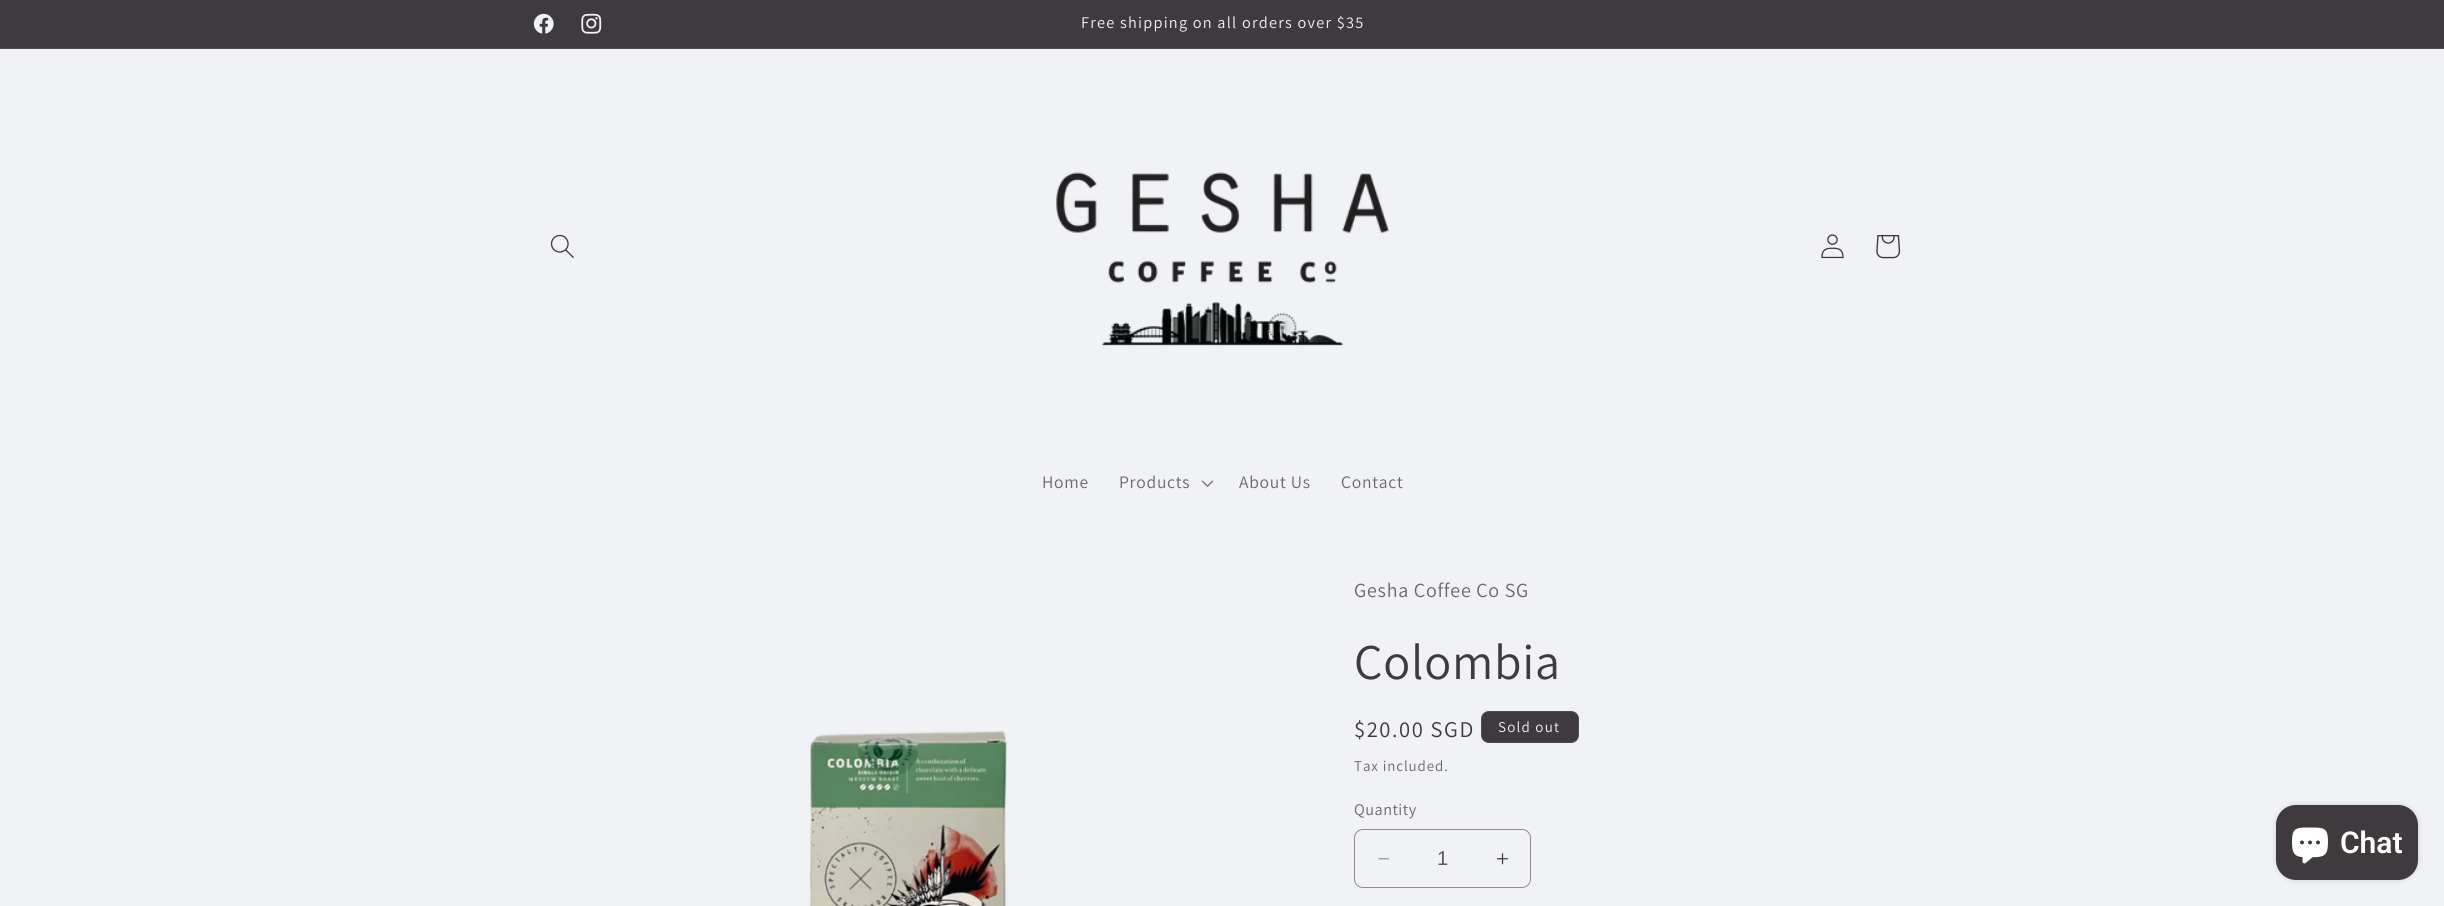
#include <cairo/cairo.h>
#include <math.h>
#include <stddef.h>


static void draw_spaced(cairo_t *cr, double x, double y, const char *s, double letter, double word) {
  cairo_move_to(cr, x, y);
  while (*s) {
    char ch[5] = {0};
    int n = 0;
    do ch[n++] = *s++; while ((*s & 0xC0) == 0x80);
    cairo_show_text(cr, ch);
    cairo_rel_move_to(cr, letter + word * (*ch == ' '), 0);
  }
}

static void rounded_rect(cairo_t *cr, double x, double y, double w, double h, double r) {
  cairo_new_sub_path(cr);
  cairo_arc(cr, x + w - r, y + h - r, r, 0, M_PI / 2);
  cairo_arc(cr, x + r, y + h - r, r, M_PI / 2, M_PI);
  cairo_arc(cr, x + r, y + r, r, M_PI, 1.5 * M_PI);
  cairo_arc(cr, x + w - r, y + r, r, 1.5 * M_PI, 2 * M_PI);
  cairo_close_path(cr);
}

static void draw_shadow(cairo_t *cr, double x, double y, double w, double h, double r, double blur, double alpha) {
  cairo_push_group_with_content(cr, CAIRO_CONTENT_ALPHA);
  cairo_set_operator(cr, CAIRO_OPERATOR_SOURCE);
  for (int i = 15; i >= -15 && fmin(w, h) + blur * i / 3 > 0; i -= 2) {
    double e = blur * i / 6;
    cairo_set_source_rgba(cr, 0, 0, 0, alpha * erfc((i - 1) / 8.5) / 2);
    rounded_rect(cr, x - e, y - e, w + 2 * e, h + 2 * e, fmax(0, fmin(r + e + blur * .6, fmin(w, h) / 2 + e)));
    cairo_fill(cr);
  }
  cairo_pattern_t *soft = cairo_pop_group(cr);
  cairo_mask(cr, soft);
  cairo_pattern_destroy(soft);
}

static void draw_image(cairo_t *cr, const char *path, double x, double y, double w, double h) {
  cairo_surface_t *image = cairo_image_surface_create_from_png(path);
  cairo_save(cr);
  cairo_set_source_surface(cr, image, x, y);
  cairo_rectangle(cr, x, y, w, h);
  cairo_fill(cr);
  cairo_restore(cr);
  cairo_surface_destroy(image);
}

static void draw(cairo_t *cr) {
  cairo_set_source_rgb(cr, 240 / 255.0, 242 / 255.0, 245 / 255.0);
  cairo_paint(cr);
  cairo_set_source_rgb(cr, 63 / 255.0, 58 / 255.0, 61 / 255.0);
  cairo_rectangle(cr, 0, 0, 2444, 48);
  cairo_fill(cr);
  cairo_set_source_rgb(cr, 77 / 255.0, 73 / 255.0, 76 / 255.0);
  cairo_rectangle(cr, 0, 48, 2444, 1);
  cairo_fill(cr);
  draw_image(cr, "images/1.png", 533, 13, 21, 21);
  draw_image(cr, "images/2.png", 581, 13, 21, 21);
  draw_image(cr, "images/3.png", 550, 234, 24, 24);
  draw_image(cr, "images/4.png", 1056, 172, 333, 174);
  draw_image(cr, "images/5.png", 1821, 234, 23, 25);
  draw_image(cr, "images/6.png", 1876, 235, 25, 24);
  draw_image(cr, "images/7.png", 1201, 480, 13, 7);
  draw_image(cr, "images/8.png", 808, 730, 200, 176);
  cairo_set_source_rgb(cr, 63 / 255.0, 58 / 255.0, 61 / 255.0);
  rounded_rect(cr, 1481, 711, 98, 32, 8);
  cairo_fill(cr);
  rounded_rect(cr, 1481.5, 711.5, 97, 31, 7.5);
  cairo_set_source_rgba(cr, 240 / 255.0, 242 / 255.0, 245 / 255.0, 0.1);
  cairo_set_line_width(cr, 1);
  cairo_stroke(cr);
  draw_image(cr, "images/9.png", 1378, 858, 12, 2);
  draw_image(cr, "images/10.png", 1496, 853, 13, 12);
  rounded_rect(cr, 1354.5, 829.5, 176, 58, 8.5);
  cairo_set_source_rgb(cr, 143 / 255.0, 141 / 255.0, 144 / 255.0);
  cairo_stroke(cr);
  cairo_set_source_rgb(cr, 0, 0, 0);
  draw_shadow(cr, 2276, 805, 142, 75, 20, 3, 0.15);
  cairo_set_source_rgb(cr, 63 / 255.0, 58 / 255.0, 61 / 255.0);
  rounded_rect(cr, 2276, 805, 142, 75, 20);
  cairo_fill(cr);
  draw_image(cr, "images/11.png", 2292, 827, 36, 37);
  cairo_select_font_face(cr, "Assistant", CAIRO_FONT_SLANT_NORMAL, CAIRO_FONT_WEIGHT_NORMAL);
  cairo_set_font_size(cr, 16.25);
  cairo_set_source_rgb(cr, 240 / 255.0, 242 / 255.0, 245 / 255.0);
  draw_spaced(cr, 1081, 28, "Free shipping on all orders over $35", 1.25, 0);
  cairo_set_font_size(cr, 17.5);
  cairo_set_source_rgb(cr, 107 / 255.0, 104 / 255.0, 107 / 255.0);
  draw_spaced(cr, 1042, 488, "Home", 0.75, 0);
  draw_spaced(cr, 1119, 488, "Products", 0.75, 0);
  draw_spaced(cr, 1239, 488, "About Us", 0.75, 0);
  draw_spaced(cr, 1341, 488, "Contact", 0.75, 0);
  cairo_set_font_size(cr, 20);
  draw_spaced(cr, 1354, 597, "Gesha Coffee Co SG", 0.75, 0);
  cairo_set_font_size(cr, 50);
  cairo_set_source_rgb(cr, 63 / 255.0, 58 / 255.0, 61 / 255.0);
  draw_spaced(cr, 1354, 679, "Colombia", 0.75, 0);
  cairo_set_font_size(cr, 22.5);
  draw_spaced(cr, 1354, 737, "$20.00 SGD", 1.6, 0);
  cairo_set_font_size(cr, 15);
  cairo_set_source_rgb(cr, 240 / 255.0, 242 / 255.0, 245 / 255.0);
  draw_spaced(cr, 1498, 732, "Sold out", 1.25, 0);
  cairo_set_source_rgb(cr, 107 / 255.0, 104 / 255.0, 107 / 255.0);
  draw_spaced(cr, 1354, 771, "Tax included.", 0.9, 0);
  cairo_set_font_size(cr, 16.25);
  draw_spaced(cr, 1354, 815, "Quantity", 0.5, 0);
  cairo_select_font_face(cr, "Liberation Sans", CAIRO_FONT_SLANT_NORMAL, CAIRO_FONT_WEIGHT_NORMAL);
  cairo_set_font_size(cr, 20);
  cairo_set_source_rgb(cr, 90 / 255.0, 86 / 255.0, 89 / 255.0);
  cairo_move_to(cr, 1437, 865);
  cairo_show_text(cr, "1");
  cairo_select_font_face(cr, "Roboto SemiBold", CAIRO_FONT_SLANT_NORMAL, CAIRO_FONT_WEIGHT_NORMAL);
  cairo_set_font_size(cr, 30);
  cairo_set_source_rgb(cr, 1, 1, 1);
  cairo_move_to(cr, 2340, 853);
  cairo_show_text(cr, "Chat");
}

int main(void) {
  cairo_surface_t *surface = cairo_image_surface_create(CAIRO_FORMAT_RGB24, 2444, 906);
  cairo_t *cr = cairo_create(surface);
  cairo_font_options_t *options = cairo_font_options_create();
  cairo_font_options_set_hint_metrics(options, CAIRO_HINT_METRICS_OFF);
  cairo_font_options_set_hint_style(options, CAIRO_HINT_STYLE_NONE);
  cairo_set_font_options(cr, options);
  cairo_set_miter_limit(cr, 4);
  draw(cr);
  cairo_surface_write_to_png(surface, "out.png");
  cairo_font_options_destroy(options);
  cairo_destroy(cr);
  cairo_surface_destroy(surface);
  return 0;
}
